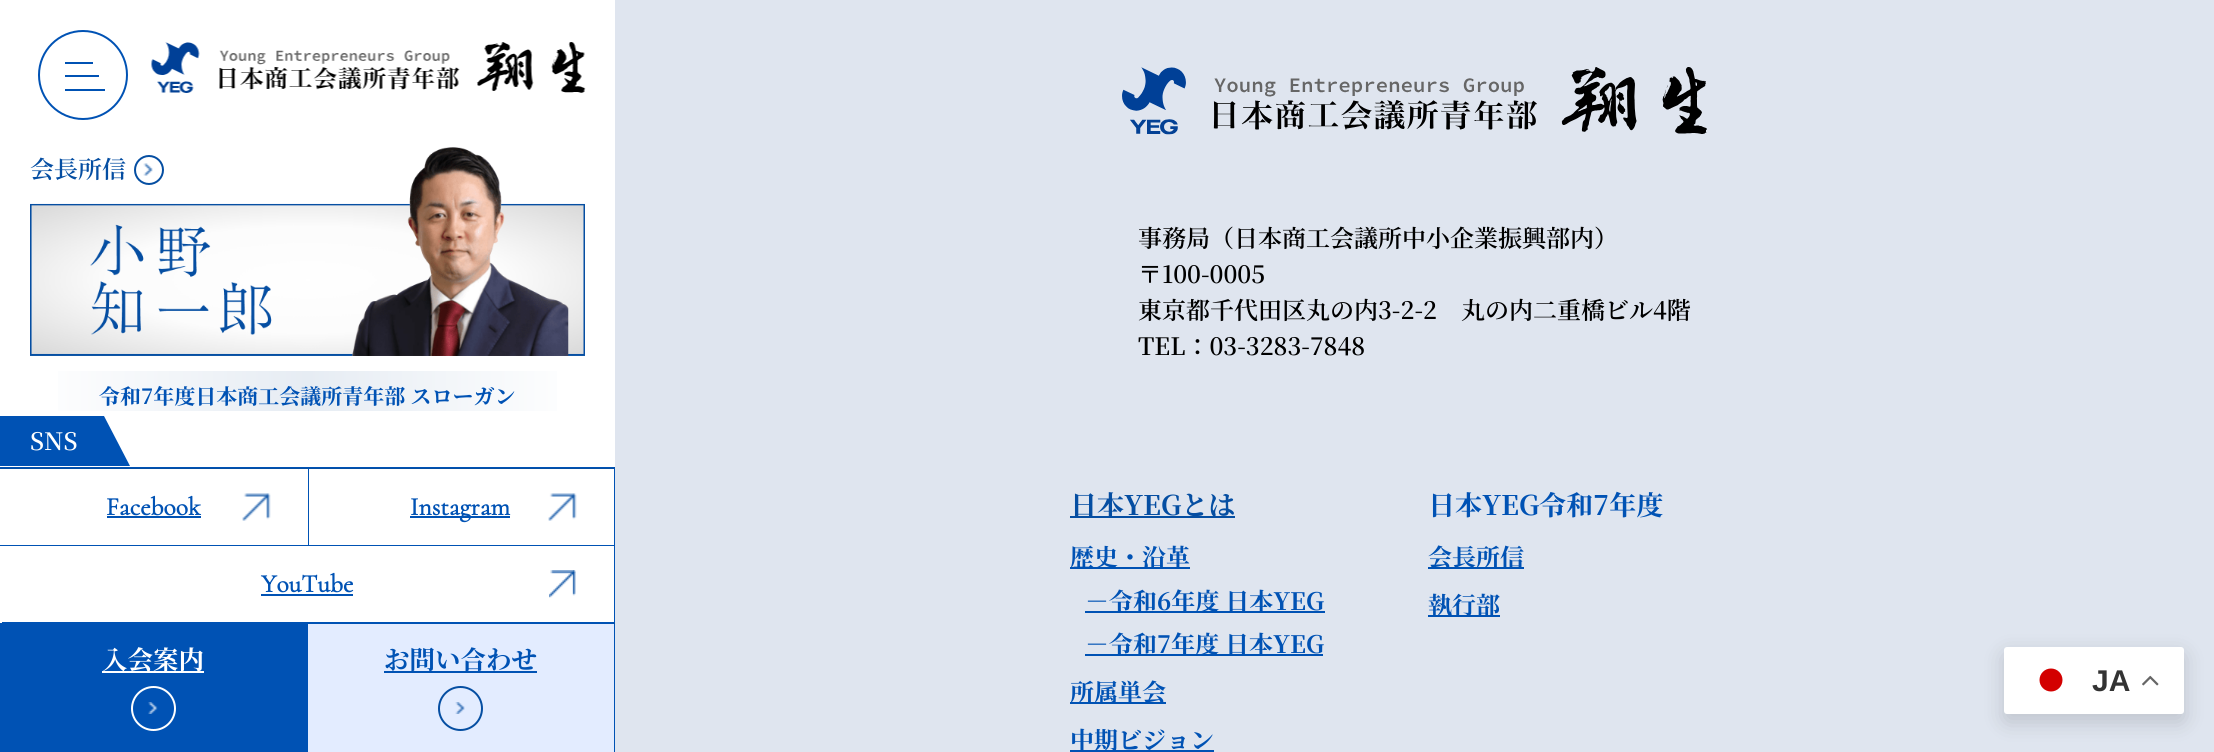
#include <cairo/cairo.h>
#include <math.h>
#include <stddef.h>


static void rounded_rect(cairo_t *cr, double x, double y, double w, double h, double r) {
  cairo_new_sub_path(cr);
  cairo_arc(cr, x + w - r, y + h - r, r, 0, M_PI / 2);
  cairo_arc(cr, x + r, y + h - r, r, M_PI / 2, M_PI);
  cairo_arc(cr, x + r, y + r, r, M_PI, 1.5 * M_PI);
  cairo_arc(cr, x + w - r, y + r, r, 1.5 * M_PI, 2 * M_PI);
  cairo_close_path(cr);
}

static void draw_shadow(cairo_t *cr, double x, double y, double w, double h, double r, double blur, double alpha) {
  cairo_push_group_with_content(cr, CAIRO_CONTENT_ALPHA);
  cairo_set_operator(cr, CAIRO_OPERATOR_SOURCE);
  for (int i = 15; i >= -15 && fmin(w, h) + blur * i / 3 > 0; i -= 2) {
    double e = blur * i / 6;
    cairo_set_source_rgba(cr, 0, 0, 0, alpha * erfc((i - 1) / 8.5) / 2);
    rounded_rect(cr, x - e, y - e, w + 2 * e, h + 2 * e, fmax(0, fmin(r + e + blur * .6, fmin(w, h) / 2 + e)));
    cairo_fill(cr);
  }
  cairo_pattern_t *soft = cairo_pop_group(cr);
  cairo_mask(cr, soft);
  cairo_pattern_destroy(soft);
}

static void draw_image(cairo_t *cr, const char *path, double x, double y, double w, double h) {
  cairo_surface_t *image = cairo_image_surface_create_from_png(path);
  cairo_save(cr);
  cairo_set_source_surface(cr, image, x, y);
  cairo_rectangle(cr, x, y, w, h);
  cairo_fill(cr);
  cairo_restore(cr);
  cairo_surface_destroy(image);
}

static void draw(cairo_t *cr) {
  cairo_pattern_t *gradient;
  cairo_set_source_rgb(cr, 1, 1, 1);
  cairo_paint(cr);
  cairo_arc(cr, 83, 75, 44, 0, 2 * M_PI);
  cairo_set_source_rgb(cr, 0, 82 / 255.0, 180 / 255.0);
  cairo_stroke(cr);
  cairo_rectangle(cr, 65, 62, 28, 2);
  cairo_fill(cr);
  cairo_rectangle(cr, 65, 75, 34, 2);
  cairo_fill(cr);
  cairo_rectangle(cr, 65, 89, 40, 2);
  cairo_fill(cr);
  draw_image(cr, "images/1.png", 151, 42, 435, 51);
  draw_image(cr, "images/2.png", 30, 147, 555, 209);
  draw_image(cr, "images/3.png", 143, 163, 10, 13);
  cairo_arc(cr, 149, 170, 14, 0, 2 * M_PI);
  cairo_set_source_rgb(cr, 5 / 255.0, 78 / 255.0, 162 / 255.0);
  cairo_stroke(cr);
  gradient = cairo_pattern_create_linear(30, 397, 585, 397);
  cairo_pattern_add_color_stop_rgba(gradient, 0, 1, 1, 1, 1);
  cairo_pattern_add_color_stop_rgba(gradient, 0.5, 230 / 255.0, 236 / 255.0, 243 / 255.0, 1);
  cairo_pattern_add_color_stop_rgba(gradient, 1, 1, 1, 1, 1);
  cairo_set_source(cr, gradient);
  cairo_pattern_destroy(gradient);
  cairo_rectangle(cr, 58, 371, 499, 40);
  cairo_fill(cr);
  cairo_set_source_rgb(cr, 0, 82 / 255.0, 180 / 255.0);
  cairo_new_path(cr);
  cairo_move_to(cr, 0, 416);
  cairo_line_to(cr, 0, 466);
  cairo_line_to(cr, 130, 466);
  cairo_line_to(cr, 104, 416);
  cairo_close_path(cr);
  cairo_fill(cr);
  cairo_set_source_rgb(cr, 5 / 255.0, 78 / 255.0, 162 / 255.0);
  cairo_rectangle(cr, 0, 467, 615, 2);
  cairo_fill(cr);
  cairo_set_source_rgb(cr, 0, 82 / 255.0, 180 / 255.0);
  cairo_rectangle(cr, 308, 468, 1, 78);
  cairo_fill(cr);
  cairo_new_path(cr);
  cairo_move_to(cr, 0, 467);
  cairo_line_to(cr, 0, 468);
  cairo_line_to(cr, 308, 468);
  cairo_line_to(cr, 308, 545);
  cairo_line_to(cr, 308, 467);
  cairo_close_path(cr);
  cairo_fill(cr);
  cairo_rectangle(cr, 107, 516, 94, 2);
  cairo_fill(cr);
  draw_image(cr, "images/4.png", 242, 493, 29, 28);
  cairo_rectangle(cr, 614, 468, 1, 78);
  cairo_fill(cr);
  cairo_new_path(cr);
  cairo_move_to(cr, 308, 467);
  cairo_line_to(cr, 308, 468);
  cairo_line_to(cr, 614, 468);
  cairo_line_to(cr, 614, 545);
  cairo_line_to(cr, 614, 467);
  cairo_close_path(cr);
  cairo_fill(cr);
  cairo_rectangle(cr, 410, 516, 100, 2);
  cairo_fill(cr);
  draw_image(cr, "images/4.png", 548, 493, 29, 28);
  cairo_new_path(cr);
  cairo_move_to(cr, 2, 622);
  cairo_line_to(cr, 2, 623);
  cairo_line_to(cr, 615, 623);
  cairo_line_to(cr, 615, 546);
  cairo_line_to(cr, 614, 546);
  cairo_line_to(cr, 614, 622);
  cairo_close_path(cr);
  cairo_fill(cr);
  cairo_new_path(cr);
  cairo_move_to(cr, 0, 545);
  cairo_line_to(cr, 0, 546);
  cairo_line_to(cr, 614, 546);
  cairo_line_to(cr, 614, 621);
  cairo_line_to(cr, 614, 545);
  cairo_close_path(cr);
  cairo_fill(cr);
  cairo_rectangle(cr, 261, 594, 92, 2);
  cairo_fill(cr);
  draw_image(cr, "images/5.png", 549, 570, 27, 28);
  cairo_set_source_rgb(cr, 5 / 255.0, 78 / 255.0, 162 / 255.0);
  cairo_rectangle(cr, 614, 623, 1, 1);
  cairo_fill(cr);
  cairo_set_source_rgb(cr, 0, 82 / 255.0, 180 / 255.0);
  cairo_new_path(cr);
  cairo_move_to(cr, 0, 623);
  cairo_line_to(cr, 0, 624);
  cairo_line_to(cr, 308, 624);
  cairo_line_to(cr, 308, 752);
  cairo_line_to(cr, 308, 623);
  cairo_close_path(cr);
  cairo_fill(cr);
  cairo_rectangle(cr, 0, 624, 308, 128);
  cairo_fill(cr);
  cairo_set_source_rgb(cr, 1, 1, 1);
  cairo_rectangle(cr, 102, 671, 102, 2);
  cairo_fill(cr);
  draw_image(cr, "images/6.png", 148, 702, 10, 12);
  cairo_arc(cr, 153.5, 708.5, 21.5, 0, 2 * M_PI);
  cairo_stroke(cr);
  cairo_set_source_rgb(cr, 0, 82 / 255.0, 180 / 255.0);
  cairo_rectangle(cr, 614, 624, 1, 128);
  cairo_fill(cr);
  cairo_new_path(cr);
  cairo_move_to(cr, 308, 623);
  cairo_line_to(cr, 308, 624);
  cairo_line_to(cr, 614, 624);
  cairo_line_to(cr, 614, 752);
  cairo_line_to(cr, 614, 623);
  cairo_close_path(cr);
  cairo_fill(cr);
  cairo_set_source_rgb(cr, 227 / 255.0, 236 / 255.0, 1);
  cairo_rectangle(cr, 308, 624, 306, 128);
  cairo_fill(cr);
  cairo_set_source_rgb(cr, 0, 82 / 255.0, 180 / 255.0);
  cairo_rectangle(cr, 384, 671, 153, 2);
  cairo_fill(cr);
  draw_image(cr, "images/7.png", 455, 702, 10, 12);
  cairo_arc(cr, 460.5, 708.5, 21.5, 0, 2 * M_PI);
  cairo_set_source_rgb(cr, 5 / 255.0, 78 / 255.0, 162 / 255.0);
  cairo_stroke(cr);
  cairo_set_source_rgb(cr, 223 / 255.0, 229 / 255.0, 239 / 255.0);
  cairo_rectangle(cr, 615, 0, 1599, 752);
  cairo_fill(cr);
  draw_image(cr, "images/8.png", 1122, 67, 585, 68);
  cairo_set_source_rgb(cr, 5 / 255.0, 78 / 255.0, 162 / 255.0);
  cairo_rectangle(cr, 1070, 516, 165, 2);
  cairo_fill(cr);
  cairo_set_source_rgb(cr, 0, 82 / 255.0, 180 / 255.0);
  cairo_rectangle(cr, 1070, 567, 120, 2);
  cairo_fill(cr);
  cairo_rectangle(cr, 1085, 611, 240, 2);
  cairo_fill(cr);
  cairo_rectangle(cr, 1085, 654, 238, 2);
  cairo_fill(cr);
  cairo_rectangle(cr, 1070, 702, 96, 2);
  cairo_fill(cr);
  cairo_rectangle(cr, 1070, 750, 144, 2);
  cairo_fill(cr);
  cairo_rectangle(cr, 1428, 567, 96, 2);
  cairo_fill(cr);
  cairo_rectangle(cr, 1428, 615, 72, 2);
  cairo_fill(cr);
  cairo_set_source_rgb(cr, 0, 0, 0);
  draw_shadow(cr, 2004, 654, 180, 68, 3, 11, 0.15);
  cairo_set_source_rgb(cr, 1, 1, 1);
  rounded_rect(cr, 2004, 647, 180, 67, 3);
  cairo_fill(cr);
  cairo_set_source_rgb(cr, 211 / 255.0, 0, 0);
  cairo_arc(cr, 2051, 680, 11.5, 0, 2 * M_PI);
  cairo_fill(cr);
  draw_image(cr, "images/9.png", 2142, 675, 17, 11);
  cairo_select_font_face(cr, "Noto Serif JP SemiBold", CAIRO_FONT_SLANT_NORMAL, CAIRO_FONT_WEIGHT_NORMAL);
  cairo_set_font_size(cr, 24);
  cairo_set_source_rgb(cr, 5 / 255.0, 78 / 255.0, 162 / 255.0);
  cairo_move_to(cr, 30, 178);
  cairo_show_text(cr, "会長所信");
  cairo_select_font_face(cr, "Noto Serif JP", CAIRO_FONT_SLANT_NORMAL, CAIRO_FONT_WEIGHT_BOLD);
  cairo_set_font_size(cr, 21);
  cairo_set_source_rgb(cr, 0, 82 / 255.0, 180 / 255.0);
  cairo_move_to(cr, 99, 404);
  cairo_show_text(cr, "令和7年度日本商工会議所青年部 スローガン");
  cairo_select_font_face(cr, "Noto Serif JP SemiBold", CAIRO_FONT_SLANT_NORMAL, CAIRO_FONT_WEIGHT_NORMAL);
  cairo_set_font_size(cr, 24);
  cairo_set_source_rgb(cr, 1, 1, 1);
  cairo_move_to(cr, 30, 450);
  cairo_show_text(cr, "SNS");
  cairo_select_font_face(cr, "Cormorant", CAIRO_FONT_SLANT_NORMAL, CAIRO_FONT_WEIGHT_BOLD);
  cairo_set_font_size(cr, 25.5);
  cairo_set_source_rgb(cr, 0, 82 / 255.0, 180 / 255.0);
  cairo_move_to(cr, 106, 515);
  cairo_show_text(cr, "Facebook");
  cairo_move_to(cr, 410, 515);
  cairo_show_text(cr, "Instagram");
  cairo_move_to(cr, 261, 592);
  cairo_show_text(cr, "YouTube");
  cairo_select_font_face(cr, "Noto Serif JP", CAIRO_FONT_SLANT_NORMAL, CAIRO_FONT_WEIGHT_BOLD);
  cairo_set_source_rgb(cr, 1, 1, 1);
  cairo_move_to(cr, 102, 669);
  cairo_show_text(cr, "入会案内");
  cairo_set_source_rgb(cr, 0, 82 / 255.0, 180 / 255.0);
  cairo_move_to(cr, 384, 669);
  cairo_show_text(cr, "お問い合わせ");
  cairo_select_font_face(cr, "Noto Serif JP SemiBold", CAIRO_FONT_SLANT_NORMAL, CAIRO_FONT_WEIGHT_NORMAL);
  cairo_set_font_size(cr, 24);
  cairo_set_source_rgb(cr, 0, 0, 0);
  cairo_move_to(cr, 1138, 247);
  cairo_show_text(cr, "事務局（日本商工会議所中小企業振興部内）");
  cairo_move_to(cr, 1138, 283);
  cairo_show_text(cr, "〒100-0005");
  cairo_move_to(cr, 1138, 319);
  cairo_show_text(cr, "東京都千代田区丸の内3-2-2　丸の内二重橋ビル4階");
  cairo_move_to(cr, 1138, 355);
  cairo_show_text(cr, "TEL：03-3283-7848");
  cairo_select_font_face(cr, "Noto Serif JP", CAIRO_FONT_SLANT_NORMAL, CAIRO_FONT_WEIGHT_BOLD);
  cairo_set_font_size(cr, 27);
  cairo_set_source_rgb(cr, 5 / 255.0, 78 / 255.0, 162 / 255.0);
  cairo_move_to(cr, 1070, 515);
  cairo_show_text(cr, "日本YEGとは");
  cairo_set_font_size(cr, 24);
  cairo_set_source_rgb(cr, 0, 82 / 255.0, 180 / 255.0);
  cairo_move_to(cr, 1070, 566);
  cairo_show_text(cr, "歴史・沿革");
  cairo_move_to(cr, 1085, 610);
  cairo_show_text(cr, "－令和6年度 日本YEG");
  cairo_move_to(cr, 1085, 653);
  cairo_show_text(cr, "－令和7年度 日本YEG");
  cairo_move_to(cr, 1070, 701);
  cairo_show_text(cr, "所属単会");
  cairo_move_to(cr, 1070, 749);
  cairo_show_text(cr, "中期ビジョン");
  cairo_set_font_size(cr, 27);
  cairo_move_to(cr, 1428, 515);
  cairo_show_text(cr, "日本YEG令和7年度");
  cairo_set_font_size(cr, 24);
  cairo_move_to(cr, 1428, 566);
  cairo_show_text(cr, "会長所信");
  cairo_move_to(cr, 1428, 614);
  cairo_show_text(cr, "執行部");
  cairo_select_font_face(cr, "Liberation Sans", CAIRO_FONT_SLANT_NORMAL, CAIRO_FONT_WEIGHT_BOLD);
  cairo_set_font_size(cr, 30);
  cairo_set_source_rgb(cr, 51 / 255.0, 51 / 255.0, 51 / 255.0);
  cairo_move_to(cr, 2092, 691);
  cairo_show_text(cr, "JA");
}

int main(void) {
  cairo_surface_t *surface = cairo_image_surface_create(CAIRO_FORMAT_RGB24, 2214, 752);
  cairo_t *cr = cairo_create(surface);
  cairo_font_options_t *options = cairo_font_options_create();
  cairo_font_options_set_hint_metrics(options, CAIRO_HINT_METRICS_OFF);
  cairo_font_options_set_hint_style(options, CAIRO_HINT_STYLE_NONE);
  cairo_set_font_options(cr, options);
  cairo_set_miter_limit(cr, 4);
  draw(cr);
  cairo_surface_write_to_png(surface, "out.png");
  cairo_font_options_destroy(options);
  cairo_destroy(cr);
  cairo_surface_destroy(surface);
  return 0;
}
